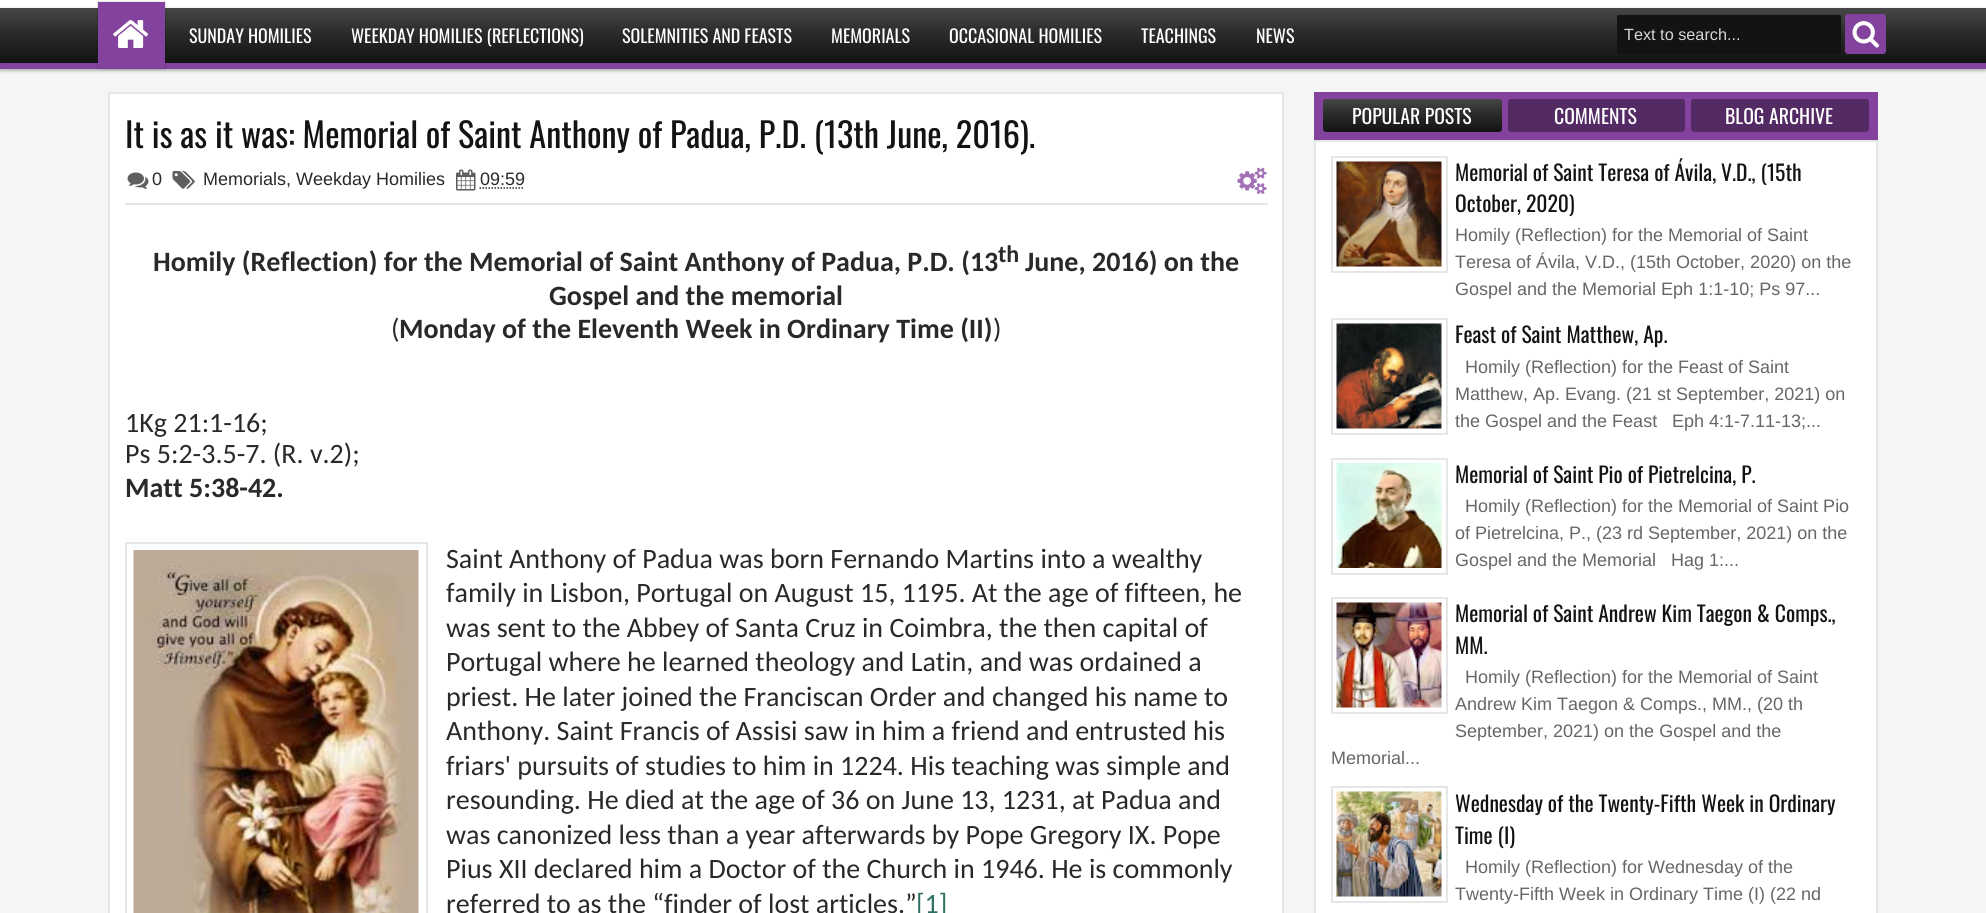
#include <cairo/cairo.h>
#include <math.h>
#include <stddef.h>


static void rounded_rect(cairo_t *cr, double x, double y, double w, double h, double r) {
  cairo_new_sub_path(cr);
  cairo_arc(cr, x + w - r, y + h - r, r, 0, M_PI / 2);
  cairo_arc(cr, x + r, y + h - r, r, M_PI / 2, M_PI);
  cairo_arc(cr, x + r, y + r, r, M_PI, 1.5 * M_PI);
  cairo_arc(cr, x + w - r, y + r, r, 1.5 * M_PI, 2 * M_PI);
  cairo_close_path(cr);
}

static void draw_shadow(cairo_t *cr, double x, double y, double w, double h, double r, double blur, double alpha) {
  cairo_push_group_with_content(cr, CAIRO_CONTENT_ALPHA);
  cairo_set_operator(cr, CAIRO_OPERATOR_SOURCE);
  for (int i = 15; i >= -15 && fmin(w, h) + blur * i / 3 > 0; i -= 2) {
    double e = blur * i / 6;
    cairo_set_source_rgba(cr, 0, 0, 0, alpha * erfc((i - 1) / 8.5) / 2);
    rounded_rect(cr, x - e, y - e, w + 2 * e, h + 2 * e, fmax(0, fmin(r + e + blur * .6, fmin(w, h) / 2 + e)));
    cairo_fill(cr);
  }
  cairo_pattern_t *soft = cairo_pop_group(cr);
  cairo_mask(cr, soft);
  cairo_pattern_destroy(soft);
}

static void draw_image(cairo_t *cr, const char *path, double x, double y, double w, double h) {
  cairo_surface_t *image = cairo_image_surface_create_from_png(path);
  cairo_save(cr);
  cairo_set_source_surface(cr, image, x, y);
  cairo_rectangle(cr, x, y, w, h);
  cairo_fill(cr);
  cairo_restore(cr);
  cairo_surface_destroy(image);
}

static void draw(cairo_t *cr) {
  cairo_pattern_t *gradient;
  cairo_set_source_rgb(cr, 245 / 255.0, 245 / 255.0, 245 / 255.0);
  cairo_paint(cr);
  cairo_set_source_rgb(cr, 1, 1, 1);
  cairo_rectangle(cr, 0, 0, 1986, 8);
  cairo_fill(cr);
  cairo_set_source_rgb(cr, 0, 0, 0);
  draw_shadow(cr, 0, 9, 1986, 62, 0, 1.5, 0.26);
  gradient = cairo_pattern_create_linear(993, 7.5, 993, 63);
  cairo_pattern_add_color_stop_rgba(gradient, 0, 71 / 255.0, 71 / 255.0, 71 / 255.0, 1);
  cairo_pattern_add_color_stop_rgba(gradient, 0.5, 41 / 255.0, 41 / 255.0, 41 / 255.0, 1);
  cairo_pattern_add_color_stop_rgba(gradient, 1, 19 / 255.0, 19 / 255.0, 19 / 255.0, 1);
  cairo_set_source(cr, gradient);
  cairo_pattern_destroy(gradient);
  cairo_rectangle(cr, 0, 8, 1986, 55);
  cairo_fill(cr);
  cairo_set_source_rgb(cr, 131 / 255.0, 66 / 255.0, 157 / 255.0);
  cairo_rectangle(cr, 0, 63, 1986, 6);
  cairo_fill(cr);
  cairo_set_source_rgb(cr, 0, 0, 0);
  draw_shadow(cr, 98, 2, 67, 67, 0, 1, 0.26);
  cairo_set_source_rgb(cr, 131 / 255.0, 66 / 255.0, 157 / 255.0);
  cairo_rectangle(cr, 98, 2, 67, 67);
  cairo_fill(cr);
  draw_image(cr, "images/1.png", 113, 20, 36, 28);
  cairo_set_source_rgb(cr, 19 / 255.0, 19 / 255.0, 19 / 255.0);
  rounded_rect(cr, 1617, 15, 224, 39, 1.5);
  cairo_fill(cr);
  cairo_set_source_rgb(cr, 131 / 255.0, 66 / 255.0, 157 / 255.0);
  rounded_rect(cr, 1845, 14, 41, 40, 3);
  cairo_fill(cr);
  draw_image(cr, "images/2.png", 1852, 21, 27, 27);
  cairo_set_source_rgb(cr, 1, 1, 1);
  cairo_rectangle(cr, 109, 93, 1174, 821);
  cairo_fill_preserve(cr);
  cairo_set_source_rgb(cr, 230 / 255.0, 230 / 255.0, 230 / 255.0);
  cairo_stroke(cr);
  cairo_rectangle(cr, 125, 203, 1143, 2);
  cairo_fill(cr);
  draw_image(cr, "images/3.png", 127, 172, 22, 17);
  draw_image(cr, "images/4.png", 172, 171, 23, 18);
  draw_image(cr, "images/5.png", 456, 169, 20, 22);
  cairo_new_path(cr);
  cairo_move_to(cr, 479.5, 188);
  cairo_line_to(cr, 524.5, 188);
  cairo_set_source_rgb(cr, 41 / 255.0, 41 / 255.0, 41 / 255.0);
  cairo_set_line_width(cr, 1.5);
  cairo_set_dash(cr, (double[]){1.5, 1.5}, 2, 0);
  cairo_stroke(cr);
  draw_image(cr, "images/6.png", 1237, 167, 30, 27);
  cairo_rectangle(cr, 126, 543, 301, 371);
  cairo_set_source_rgb(cr, 230 / 255.0, 230 / 255.0, 230 / 255.0);
  cairo_set_line_width(cr, 2);
  cairo_set_dash(cr, NULL, 0, 0);
  cairo_stroke(cr);
  draw_image(cr, "images/7.png", 133, 550, 286, 363);
  cairo_set_source_rgb(cr, 131 / 255.0, 66 / 255.0, 157 / 255.0);
  cairo_rectangle(cr, 1314, 92, 564, 48);
  cairo_fill(cr);
  gradient = cairo_pattern_create_linear(1412, 99, 1412, 132);
  cairo_pattern_add_color_stop_rgba(gradient, 0, 71 / 255.0, 71 / 255.0, 71 / 255.0, 1);
  cairo_pattern_add_color_stop_rgba(gradient, 0.5, 41 / 255.0, 41 / 255.0, 41 / 255.0, 1);
  cairo_pattern_add_color_stop_rgba(gradient, 1, 19 / 255.0, 19 / 255.0, 19 / 255.0, 1);
  cairo_set_source(cr, gradient);
  cairo_pattern_destroy(gradient);
  rounded_rect(cr, 1323, 99, 179, 33, 3);
  cairo_fill(cr);
  cairo_set_source_rgb(cr, 83 / 255.0, 42 / 255.0, 99 / 255.0);
  rounded_rect(cr, 1508, 99, 177, 33, 3);
  cairo_fill(cr);
  rounded_rect(cr, 1691, 99, 178, 33, 3);
  cairo_fill(cr);
  cairo_set_source_rgb(cr, 1, 1, 1);
  cairo_rectangle(cr, 1315, 141, 562, 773);
  cairo_fill_preserve(cr);
  cairo_set_source_rgb(cr, 230 / 255.0, 230 / 255.0, 230 / 255.0);
  cairo_stroke(cr);
  cairo_rectangle(cr, 1332, 157, 115, 115);
  cairo_stroke(cr);
  draw_image(cr, "images/8.png", 1336, 161, 106, 106);
  cairo_rectangle(cr, 1332, 319, 115, 115);
  cairo_stroke(cr);
  draw_image(cr, "images/9.png", 1336, 323, 106, 106);
  cairo_rectangle(cr, 1332, 459, 115, 115);
  cairo_stroke(cr);
  draw_image(cr, "images/10.png", 1336, 463, 106, 105);
  cairo_rectangle(cr, 1332, 598, 115, 115);
  cairo_stroke(cr);
  draw_image(cr, "images/11.png", 1336, 602, 106, 106);
  cairo_rectangle(cr, 1332, 787, 115, 115);
  cairo_stroke(cr);
  draw_image(cr, "images/12.png", 1336, 791, 106, 106);
  cairo_select_font_face(cr, "Oswald", CAIRO_FONT_SLANT_NORMAL, CAIRO_FONT_WEIGHT_NORMAL);
  cairo_set_font_size(cr, 18);
  cairo_set_source_rgb(cr, 1, 1, 1);
  cairo_move_to(cr, 189, 43);
  cairo_show_text(cr, "SUNDAY HOMILIES");
  cairo_move_to(cr, 351, 43);
  cairo_show_text(cr, "WEEKDAY HOMILIES (REFLECTIONS)");
  cairo_move_to(cr, 622, 43);
  cairo_show_text(cr, "SOLEMNITIES AND FEASTS");
  cairo_move_to(cr, 831, 43);
  cairo_show_text(cr, "MEMORIALS");
  cairo_move_to(cr, 949, 43);
  cairo_show_text(cr, "OCCASIONAL HOMILIES");
  cairo_move_to(cr, 1141, 43);
  cairo_show_text(cr, "TEACHINGS");
  cairo_move_to(cr, 1256, 43);
  cairo_show_text(cr, "NEWS");
  cairo_select_font_face(cr, "Liberation Sans", CAIRO_FONT_SLANT_NORMAL, CAIRO_FONT_WEIGHT_NORMAL);
  cairo_set_font_size(cr, 16.25);
  cairo_set_source_rgb(cr, 214 / 255.0, 214 / 255.0, 214 / 255.0);
  cairo_move_to(cr, 1624, 40);
  cairo_show_text(cr, "Text to search...");
  cairo_select_font_face(cr, "Oswald", CAIRO_FONT_SLANT_NORMAL, CAIRO_FONT_WEIGHT_NORMAL);
  cairo_set_font_size(cr, 34.2);
  cairo_set_source_rgb(cr, 19 / 255.0, 19 / 255.0, 19 / 255.0);
  cairo_move_to(cr, 125, 148);
  cairo_show_text(cr, "It is as it was: Memorial of Saint Anthony of Padua, P.D. (13th June, 2016).");
  cairo_select_font_face(cr, "Liberation Sans", CAIRO_FONT_SLANT_NORMAL, CAIRO_FONT_WEIGHT_NORMAL);
  cairo_set_font_size(cr, 18);
  cairo_set_source_rgb(cr, 41 / 255.0, 41 / 255.0, 41 / 255.0);
  cairo_move_to(cr, 152, 185);
  cairo_show_text(cr, "0");
  cairo_move_to(cr, 203, 185);
  cairo_show_text(cr, "Memorials");
  cairo_move_to(cr, 286, 185);
  cairo_show_text(cr, ", Weekday Homilies");
  cairo_move_to(cr, 480, 185);
  cairo_show_text(cr, "09:59");
  cairo_select_font_face(cr, "Carlito", CAIRO_FONT_SLANT_NORMAL, CAIRO_FONT_WEIGHT_BOLD);
  cairo_set_font_size(cr, 28);
  cairo_move_to(cr, 153, 271);
  cairo_show_text(cr, "Homily (Reflection) for the Memorial of Saint Anthony of Padua, P.D. (13");
  cairo_set_font_size(cr, 24);
  cairo_move_to(cr, 998, 262);
  cairo_show_text(cr, "th");
  cairo_set_font_size(cr, 28);
  cairo_move_to(cr, 1025, 271);
  cairo_show_text(cr, "June, 2016) on the");
  cairo_move_to(cr, 549, 305);
  cairo_show_text(cr, "Gospel and the memorial");
  cairo_select_font_face(cr, "Carlito", CAIRO_FONT_SLANT_NORMAL, CAIRO_FONT_WEIGHT_NORMAL);
  cairo_move_to(cr, 391, 338);
  cairo_show_text(cr, "(");
  cairo_select_font_face(cr, "Carlito", CAIRO_FONT_SLANT_NORMAL, CAIRO_FONT_WEIGHT_BOLD);
  cairo_move_to(cr, 399, 338);
  cairo_show_text(cr, "Monday of the Eleventh Week in Ordinary Time (II)");
  cairo_select_font_face(cr, "Carlito", CAIRO_FONT_SLANT_NORMAL, CAIRO_FONT_WEIGHT_NORMAL);
  cairo_move_to(cr, 993, 338);
  cairo_show_text(cr, ")");
  cairo_move_to(cr, 125, 432);
  cairo_show_text(cr, "1Kg 21:1-16;");
  cairo_move_to(cr, 125, 463);
  cairo_show_text(cr, "Ps 5:2-3.5-7. (R. v.2);");
  cairo_select_font_face(cr, "Carlito", CAIRO_FONT_SLANT_NORMAL, CAIRO_FONT_WEIGHT_BOLD);
  cairo_move_to(cr, 125, 497);
  cairo_show_text(cr, "Matt 5:38-42.");
  cairo_select_font_face(cr, "Carlito", CAIRO_FONT_SLANT_NORMAL, CAIRO_FONT_WEIGHT_NORMAL);
  cairo_move_to(cr, 446, 568);
  cairo_show_text(cr, "Saint Anthony of Padua was born Fernando Martins into a wealthy");
  cairo_move_to(cr, 446, 602);
  cairo_show_text(cr, "family in Lisbon, Portugal on August 15, 1195. At the age of fifteen, he");
  cairo_move_to(cr, 446, 637);
  cairo_show_text(cr, "was sent to the Abbey of Santa Cruz in Coimbra, the then capital of");
  cairo_move_to(cr, 446, 671);
  cairo_show_text(cr, "Portugal where he learned theology and Latin, and was ordained a");
  cairo_move_to(cr, 446, 706);
  cairo_show_text(cr, "priest. He later joined the Franciscan Order and changed his name to");
  cairo_move_to(cr, 446, 740);
  cairo_show_text(cr, "Anthony. Saint Francis of Assisi saw in him a friend and entrusted his");
  cairo_move_to(cr, 446, 775);
  cairo_show_text(cr, "friars' pursuits of studies to him in 1224. His teaching was simple and");
  cairo_move_to(cr, 446, 809);
  cairo_show_text(cr, "resounding. He died at the age of 36 on June 13, 1231, at Padua and");
  cairo_move_to(cr, 446, 844);
  cairo_show_text(cr, "was canonized less than a year afterwards by Pope Gregory IX. Pope");
  cairo_move_to(cr, 446, 878);
  cairo_show_text(cr, "Pius XII declared him a Doctor of the Church in 1946. He is commonly");
  cairo_move_to(cr, 446, 913);
  cairo_show_text(cr, "referred to as the “finder of lost articles.”");
  cairo_set_source_rgb(cr, 46 / 255.0, 112 / 255.0, 97 / 255.0);
  cairo_move_to(cr, 916, 913);
  cairo_show_text(cr, "[1]");
  cairo_select_font_face(cr, "Oswald", CAIRO_FONT_SLANT_NORMAL, CAIRO_FONT_WEIGHT_NORMAL);
  cairo_set_font_size(cr, 19.75);
  cairo_set_source_rgb(cr, 1, 1, 1);
  cairo_move_to(cr, 1352, 124);
  cairo_show_text(cr, "POPULAR POSTS");
  cairo_move_to(cr, 1554, 124);
  cairo_show_text(cr, "COMMENTS");
  cairo_move_to(cr, 1725, 124);
  cairo_show_text(cr, "BLOG ARCHIVE");
  cairo_set_font_size(cr, 21.6);
  cairo_set_source_rgb(cr, 19 / 255.0, 19 / 255.0, 19 / 255.0);
  cairo_move_to(cr, 1455, 181);
  cairo_show_text(cr, "Memorial of Saint Teresa of Ávila, V.D., (15th");
  cairo_move_to(cr, 1455, 212);
  cairo_show_text(cr, "October, 2020)");
  cairo_select_font_face(cr, "Liberation Sans", CAIRO_FONT_SLANT_NORMAL, CAIRO_FONT_WEIGHT_NORMAL);
  cairo_set_font_size(cr, 18);
  cairo_set_source_rgb(cr, 102 / 255.0, 102 / 255.0, 102 / 255.0);
  cairo_move_to(cr, 1455, 241);
  cairo_show_text(cr, "Homily (Reflection) for the Memorial of Saint");
  cairo_move_to(cr, 1455, 268);
  cairo_show_text(cr, "Teresa of Ávila, V.D., (15th October, 2020) on the");
  cairo_move_to(cr, 1455, 295);
  cairo_show_text(cr, "Gospel and the Memorial Eph 1:1-10; Ps 97...");
  cairo_select_font_face(cr, "Oswald", CAIRO_FONT_SLANT_NORMAL, CAIRO_FONT_WEIGHT_NORMAL);
  cairo_set_font_size(cr, 21.6);
  cairo_set_source_rgb(cr, 19 / 255.0, 19 / 255.0, 19 / 255.0);
  cairo_move_to(cr, 1455, 343);
  cairo_show_text(cr, "Feast of Saint Matthew, Ap.");
  cairo_select_font_face(cr, "Liberation Sans", CAIRO_FONT_SLANT_NORMAL, CAIRO_FONT_WEIGHT_NORMAL);
  cairo_set_font_size(cr, 18);
  cairo_set_source_rgb(cr, 102 / 255.0, 102 / 255.0, 102 / 255.0);
  cairo_move_to(cr, 1465, 373);
  cairo_show_text(cr, "Homily (Reflection) for the Feast of Saint");
  cairo_move_to(cr, 1455, 400);
  cairo_show_text(cr, "Matthew, Ap. Evang. (21 st September, 2021) on");
  cairo_move_to(cr, 1455, 427);
  cairo_show_text(cr, "the Gospel and the Feast");
  cairo_move_to(cr, 1672, 427);
  cairo_show_text(cr, "Eph 4:1-7.11-13;...");
  cairo_select_font_face(cr, "Oswald", CAIRO_FONT_SLANT_NORMAL, CAIRO_FONT_WEIGHT_NORMAL);
  cairo_set_font_size(cr, 21.6);
  cairo_set_source_rgb(cr, 19 / 255.0, 19 / 255.0, 19 / 255.0);
  cairo_move_to(cr, 1455, 483);
  cairo_show_text(cr, "Memorial of Saint Pio of Pietrelcina, P.");
  cairo_select_font_face(cr, "Liberation Sans", CAIRO_FONT_SLANT_NORMAL, CAIRO_FONT_WEIGHT_NORMAL);
  cairo_set_font_size(cr, 18);
  cairo_set_source_rgb(cr, 102 / 255.0, 102 / 255.0, 102 / 255.0);
  cairo_move_to(cr, 1465, 512);
  cairo_show_text(cr, "Homily (Reflection) for the Memorial of Saint Pio");
  cairo_move_to(cr, 1455, 539);
  cairo_show_text(cr, "of Pietrelcina, P., (23 rd September, 2021) on the");
  cairo_move_to(cr, 1455, 566);
  cairo_show_text(cr, "Gospel and the Memorial");
  cairo_move_to(cr, 1671, 566);
  cairo_show_text(cr, "Hag 1:...");
  cairo_select_font_face(cr, "Oswald", CAIRO_FONT_SLANT_NORMAL, CAIRO_FONT_WEIGHT_NORMAL);
  cairo_set_font_size(cr, 21.6);
  cairo_set_source_rgb(cr, 19 / 255.0, 19 / 255.0, 19 / 255.0);
  cairo_move_to(cr, 1455, 622);
  cairo_show_text(cr, "Memorial of Saint Andrew Kim Taegon & Comps.,");
  cairo_move_to(cr, 1455, 654);
  cairo_show_text(cr, "MM.");
  cairo_select_font_face(cr, "Liberation Sans", CAIRO_FONT_SLANT_NORMAL, CAIRO_FONT_WEIGHT_NORMAL);
  cairo_set_font_size(cr, 18);
  cairo_set_source_rgb(cr, 102 / 255.0, 102 / 255.0, 102 / 255.0);
  cairo_move_to(cr, 1465, 683);
  cairo_show_text(cr, "Homily (Reflection) for the Memorial of Saint");
  cairo_move_to(cr, 1455, 710);
  cairo_show_text(cr, "Andrew Kim Taegon & Comps., MM., (20 th");
  cairo_move_to(cr, 1455, 737);
  cairo_show_text(cr, "September, 2021) on the Gospel and the");
  cairo_move_to(cr, 1331, 764);
  cairo_show_text(cr, "Memorial...");
  cairo_select_font_face(cr, "Oswald", CAIRO_FONT_SLANT_NORMAL, CAIRO_FONT_WEIGHT_NORMAL);
  cairo_set_font_size(cr, 21.6);
  cairo_set_source_rgb(cr, 19 / 255.0, 19 / 255.0, 19 / 255.0);
  cairo_move_to(cr, 1455, 812);
  cairo_show_text(cr, "Wednesday of the Twenty-Fifth Week in Ordinary");
  cairo_move_to(cr, 1455, 844);
  cairo_show_text(cr, "Time (I)");
  cairo_select_font_face(cr, "Liberation Sans", CAIRO_FONT_SLANT_NORMAL, CAIRO_FONT_WEIGHT_NORMAL);
  cairo_set_font_size(cr, 18);
  cairo_set_source_rgb(cr, 102 / 255.0, 102 / 255.0, 102 / 255.0);
  cairo_move_to(cr, 1465, 873);
  cairo_show_text(cr, "Homily (Reflection) for Wednesday of the");
  cairo_move_to(cr, 1455, 900);
  cairo_show_text(cr, "Twenty-Fifth Week in Ordinary Time (I) (22 nd");
}

int main(void) {
  cairo_surface_t *surface = cairo_image_surface_create(CAIRO_FORMAT_RGB24, 1986, 913);
  cairo_t *cr = cairo_create(surface);
  cairo_font_options_t *options = cairo_font_options_create();
  cairo_font_options_set_hint_metrics(options, CAIRO_HINT_METRICS_OFF);
  cairo_font_options_set_hint_style(options, CAIRO_HINT_STYLE_NONE);
  cairo_set_font_options(cr, options);
  cairo_set_miter_limit(cr, 4);
  draw(cr);
  cairo_surface_write_to_png(surface, "out.png");
  cairo_font_options_destroy(options);
  cairo_destroy(cr);
  cairo_surface_destroy(surface);
  return 0;
}
